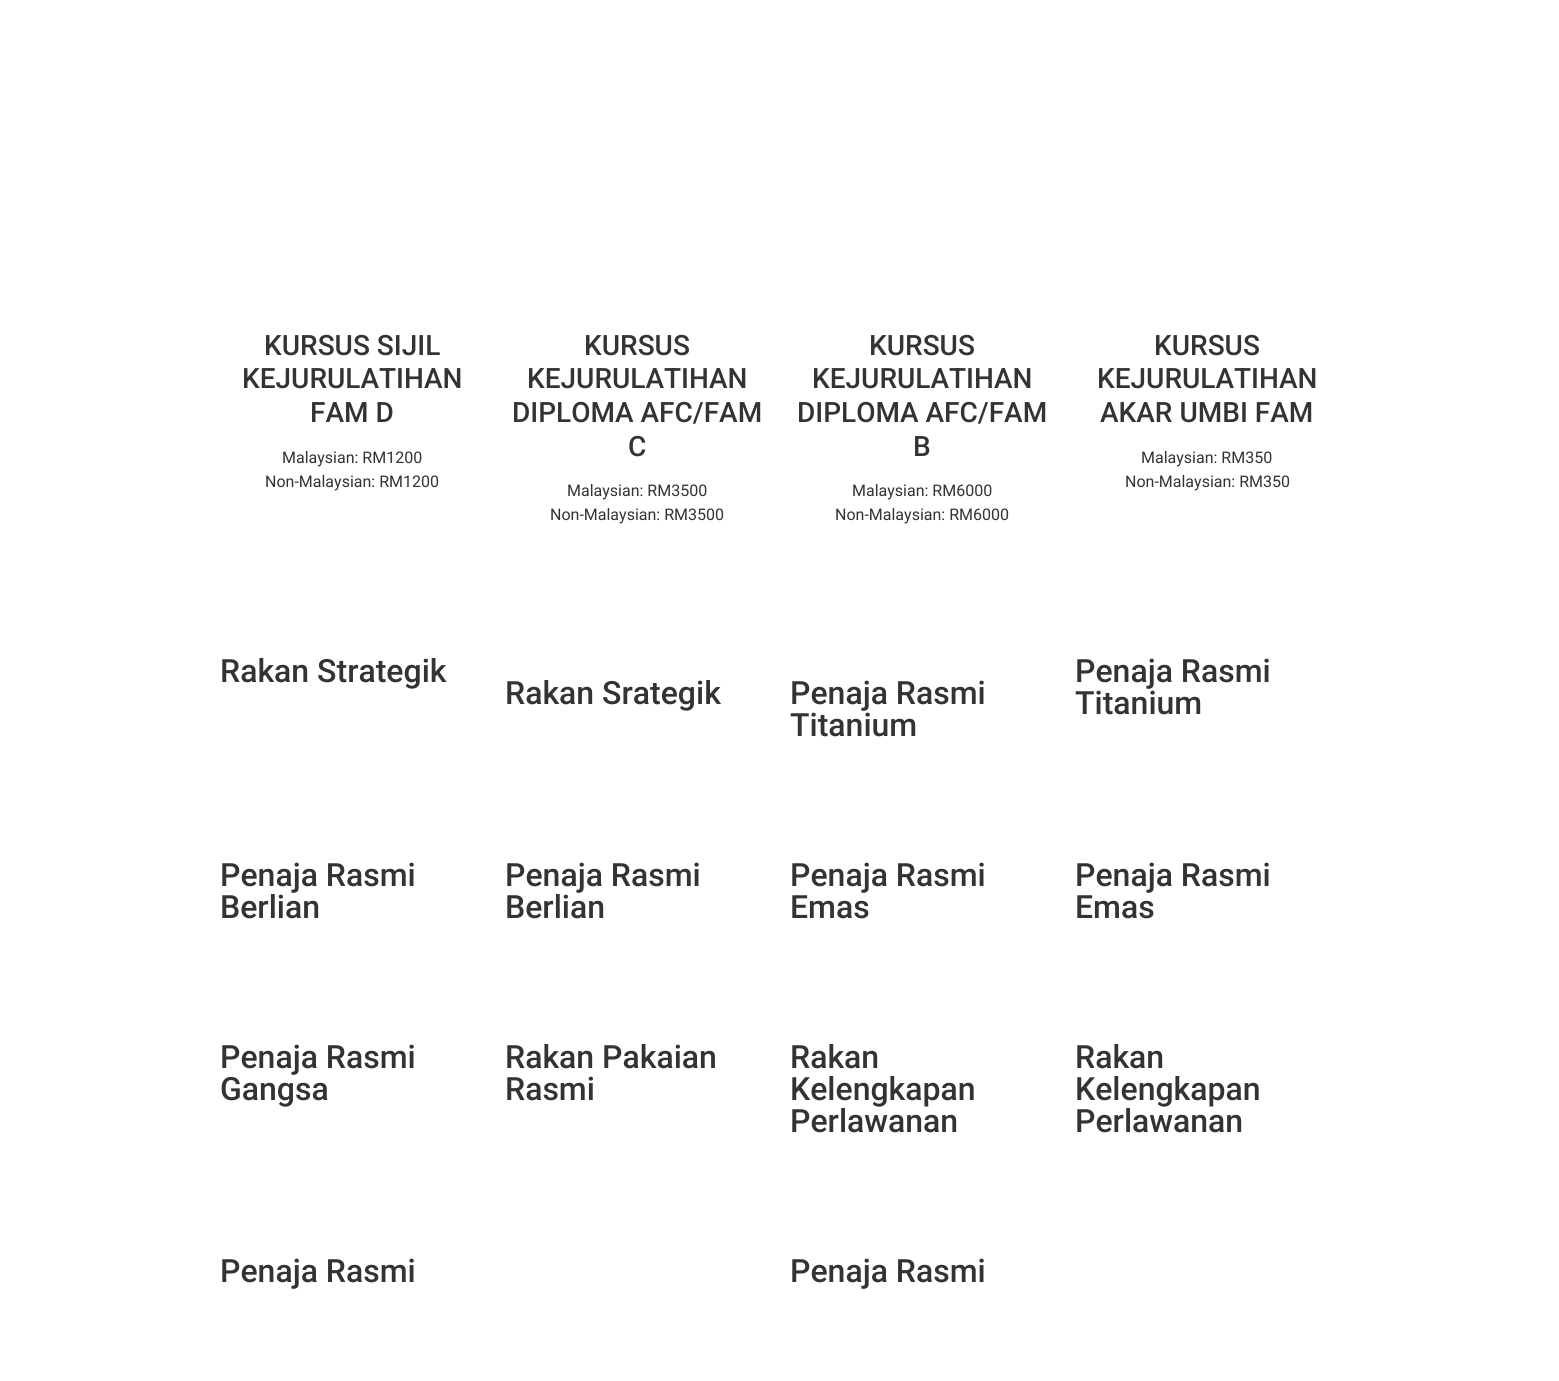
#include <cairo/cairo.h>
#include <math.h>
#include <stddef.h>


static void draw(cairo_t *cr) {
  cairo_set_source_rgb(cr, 1, 1, 1);
  cairo_paint(cr);
  cairo_select_font_face(cr, "Roboto Medium", CAIRO_FONT_SLANT_NORMAL, CAIRO_FONT_WEIGHT_NORMAL);
  cairo_set_font_size(cr, 28);
  cairo_set_source_rgb(cr, 51 / 255.0, 51 / 255.0, 51 / 255.0);
  cairo_move_to(cr, 264, 355);
  cairo_show_text(cr, "KURSUS SIJIL");
  cairo_move_to(cr, 242, 388);
  cairo_show_text(cr, "KEJURULATIHAN");
  cairo_move_to(cr, 310, 422);
  cairo_show_text(cr, "FAM D");
  cairo_select_font_face(cr, "Roboto", CAIRO_FONT_SLANT_NORMAL, CAIRO_FONT_WEIGHT_NORMAL);
  cairo_set_font_size(cr, 16);
  cairo_move_to(cr, 282, 463);
  cairo_show_text(cr, "Malaysian: RM1200");
  cairo_move_to(cr, 265, 487);
  cairo_show_text(cr, "Non-Malaysian: RM1200");
  cairo_select_font_face(cr, "Roboto Medium", CAIRO_FONT_SLANT_NORMAL, CAIRO_FONT_WEIGHT_NORMAL);
  cairo_set_font_size(cr, 28);
  cairo_move_to(cr, 584, 355);
  cairo_show_text(cr, "KURSUS");
  cairo_move_to(cr, 527, 388);
  cairo_show_text(cr, "KEJURULATIHAN");
  cairo_move_to(cr, 512, 422);
  cairo_show_text(cr, "DIPLOMA AFC/FAM");
  cairo_move_to(cr, 628, 456);
  cairo_show_text(cr, "C");
  cairo_select_font_face(cr, "Roboto", CAIRO_FONT_SLANT_NORMAL, CAIRO_FONT_WEIGHT_NORMAL);
  cairo_set_font_size(cr, 16);
  cairo_move_to(cr, 567, 496);
  cairo_show_text(cr, "Malaysian: RM3500");
  cairo_move_to(cr, 550, 520);
  cairo_show_text(cr, "Non-Malaysian: RM3500");
  cairo_select_font_face(cr, "Roboto Medium", CAIRO_FONT_SLANT_NORMAL, CAIRO_FONT_WEIGHT_NORMAL);
  cairo_set_font_size(cr, 28);
  cairo_move_to(cr, 869, 355);
  cairo_show_text(cr, "KURSUS");
  cairo_move_to(cr, 812, 388);
  cairo_show_text(cr, "KEJURULATIHAN");
  cairo_move_to(cr, 797, 422);
  cairo_show_text(cr, "DIPLOMA AFC/FAM");
  cairo_move_to(cr, 913, 456);
  cairo_show_text(cr, "B");
  cairo_select_font_face(cr, "Roboto", CAIRO_FONT_SLANT_NORMAL, CAIRO_FONT_WEIGHT_NORMAL);
  cairo_set_font_size(cr, 16);
  cairo_move_to(cr, 852, 496);
  cairo_show_text(cr, "Malaysian: RM6000");
  cairo_move_to(cr, 835, 520);
  cairo_show_text(cr, "Non-Malaysian: RM6000");
  cairo_select_font_face(cr, "Roboto Medium", CAIRO_FONT_SLANT_NORMAL, CAIRO_FONT_WEIGHT_NORMAL);
  cairo_set_font_size(cr, 28);
  cairo_move_to(cr, 1154, 355);
  cairo_show_text(cr, "KURSUS");
  cairo_move_to(cr, 1097, 388);
  cairo_show_text(cr, "KEJURULATIHAN");
  cairo_move_to(cr, 1100, 422);
  cairo_show_text(cr, "AKAR UMBI FAM");
  cairo_select_font_face(cr, "Roboto", CAIRO_FONT_SLANT_NORMAL, CAIRO_FONT_WEIGHT_NORMAL);
  cairo_set_font_size(cr, 16);
  cairo_move_to(cr, 1141, 463);
  cairo_show_text(cr, "Malaysian: RM350");
  cairo_move_to(cr, 1125, 487);
  cairo_show_text(cr, "Non-Malaysian: RM350");
  cairo_select_font_face(cr, "Roboto Medium", CAIRO_FONT_SLANT_NORMAL, CAIRO_FONT_WEIGHT_NORMAL);
  cairo_set_font_size(cr, 32);
  cairo_move_to(cr, 220, 682);
  cairo_show_text(cr, "Rakan Strategik");
  cairo_move_to(cr, 505, 704);
  cairo_show_text(cr, "Rakan Srategik");
  cairo_move_to(cr, 790, 704);
  cairo_show_text(cr, "Penaja Rasmi");
  cairo_move_to(cr, 790, 736);
  cairo_show_text(cr, "Titanium");
  cairo_move_to(cr, 1075, 682);
  cairo_show_text(cr, "Penaja Rasmi");
  cairo_move_to(cr, 1075, 714);
  cairo_show_text(cr, "Titanium");
  cairo_move_to(cr, 220, 886);
  cairo_show_text(cr, "Penaja Rasmi");
  cairo_move_to(cr, 220, 918);
  cairo_show_text(cr, "Berlian");
  cairo_move_to(cr, 505, 886);
  cairo_show_text(cr, "Penaja Rasmi");
  cairo_move_to(cr, 505, 918);
  cairo_show_text(cr, "Berlian");
  cairo_move_to(cr, 790, 886);
  cairo_show_text(cr, "Penaja Rasmi");
  cairo_move_to(cr, 790, 918);
  cairo_show_text(cr, "Emas");
  cairo_move_to(cr, 1075, 886);
  cairo_show_text(cr, "Penaja Rasmi");
  cairo_move_to(cr, 1075, 918);
  cairo_show_text(cr, "Emas");
  cairo_move_to(cr, 220, 1068);
  cairo_show_text(cr, "Penaja Rasmi");
  cairo_move_to(cr, 220, 1100);
  cairo_show_text(cr, "Gangsa");
  cairo_move_to(cr, 505, 1068);
  cairo_show_text(cr, "Rakan Pakaian");
  cairo_move_to(cr, 505, 1100);
  cairo_show_text(cr, "Rasmi");
  cairo_move_to(cr, 790, 1068);
  cairo_show_text(cr, "Rakan");
  cairo_move_to(cr, 790, 1100);
  cairo_show_text(cr, "Kelengkapan");
  cairo_move_to(cr, 790, 1132);
  cairo_show_text(cr, "Perlawanan");
  cairo_move_to(cr, 1075, 1068);
  cairo_show_text(cr, "Rakan");
  cairo_move_to(cr, 1075, 1100);
  cairo_show_text(cr, "Kelengkapan");
  cairo_move_to(cr, 1075, 1132);
  cairo_show_text(cr, "Perlawanan");
  cairo_move_to(cr, 220, 1282);
  cairo_show_text(cr, "Penaja Rasmi");
  cairo_move_to(cr, 790, 1282);
  cairo_show_text(cr, "Penaja Rasmi");
}

int main(void) {
  cairo_surface_t *surface = cairo_image_surface_create(CAIRO_FORMAT_RGB24, 1559, 1381);
  cairo_t *cr = cairo_create(surface);
  cairo_font_options_t *options = cairo_font_options_create();
  cairo_font_options_set_hint_metrics(options, CAIRO_HINT_METRICS_OFF);
  cairo_font_options_set_hint_style(options, CAIRO_HINT_STYLE_NONE);
  cairo_set_font_options(cr, options);
  cairo_set_miter_limit(cr, 4);
  draw(cr);
  cairo_surface_write_to_png(surface, "out.png");
  cairo_font_options_destroy(options);
  cairo_destroy(cr);
  cairo_surface_destroy(surface);
  return 0;
}
